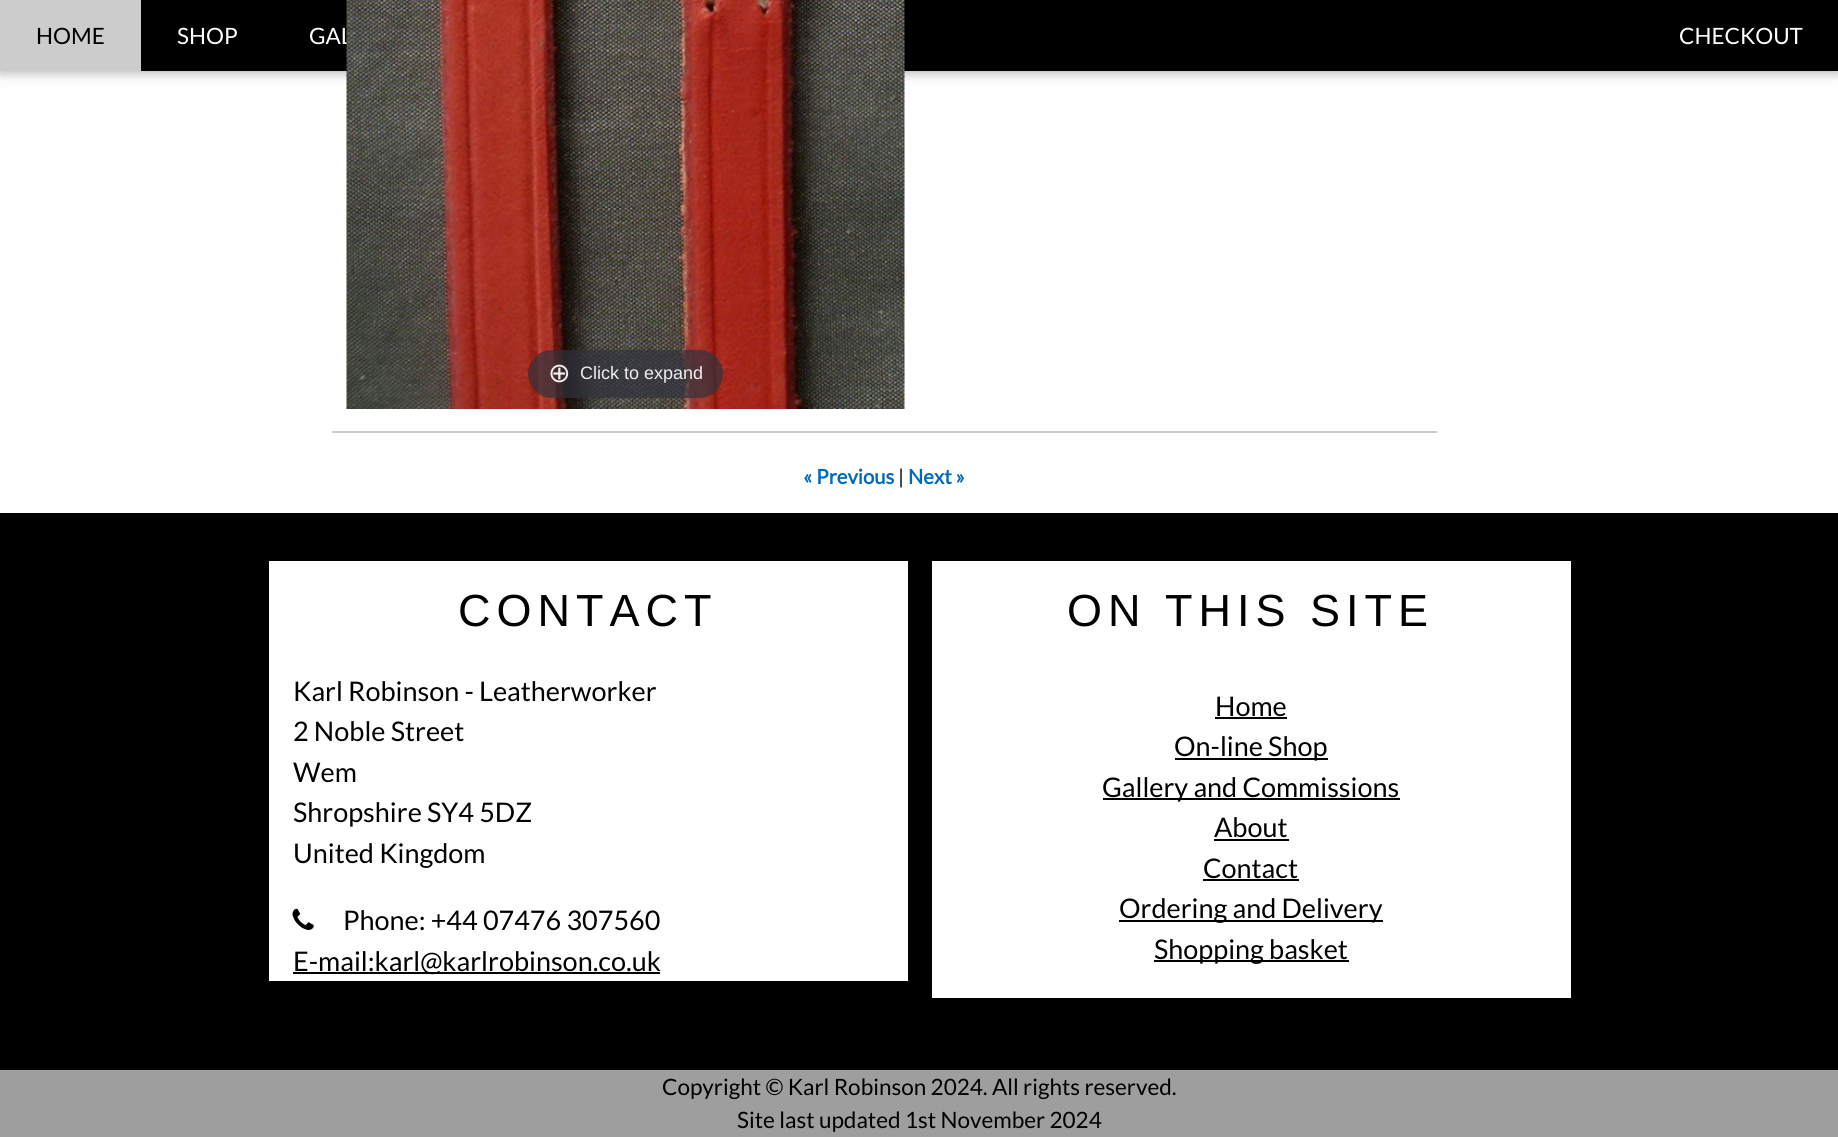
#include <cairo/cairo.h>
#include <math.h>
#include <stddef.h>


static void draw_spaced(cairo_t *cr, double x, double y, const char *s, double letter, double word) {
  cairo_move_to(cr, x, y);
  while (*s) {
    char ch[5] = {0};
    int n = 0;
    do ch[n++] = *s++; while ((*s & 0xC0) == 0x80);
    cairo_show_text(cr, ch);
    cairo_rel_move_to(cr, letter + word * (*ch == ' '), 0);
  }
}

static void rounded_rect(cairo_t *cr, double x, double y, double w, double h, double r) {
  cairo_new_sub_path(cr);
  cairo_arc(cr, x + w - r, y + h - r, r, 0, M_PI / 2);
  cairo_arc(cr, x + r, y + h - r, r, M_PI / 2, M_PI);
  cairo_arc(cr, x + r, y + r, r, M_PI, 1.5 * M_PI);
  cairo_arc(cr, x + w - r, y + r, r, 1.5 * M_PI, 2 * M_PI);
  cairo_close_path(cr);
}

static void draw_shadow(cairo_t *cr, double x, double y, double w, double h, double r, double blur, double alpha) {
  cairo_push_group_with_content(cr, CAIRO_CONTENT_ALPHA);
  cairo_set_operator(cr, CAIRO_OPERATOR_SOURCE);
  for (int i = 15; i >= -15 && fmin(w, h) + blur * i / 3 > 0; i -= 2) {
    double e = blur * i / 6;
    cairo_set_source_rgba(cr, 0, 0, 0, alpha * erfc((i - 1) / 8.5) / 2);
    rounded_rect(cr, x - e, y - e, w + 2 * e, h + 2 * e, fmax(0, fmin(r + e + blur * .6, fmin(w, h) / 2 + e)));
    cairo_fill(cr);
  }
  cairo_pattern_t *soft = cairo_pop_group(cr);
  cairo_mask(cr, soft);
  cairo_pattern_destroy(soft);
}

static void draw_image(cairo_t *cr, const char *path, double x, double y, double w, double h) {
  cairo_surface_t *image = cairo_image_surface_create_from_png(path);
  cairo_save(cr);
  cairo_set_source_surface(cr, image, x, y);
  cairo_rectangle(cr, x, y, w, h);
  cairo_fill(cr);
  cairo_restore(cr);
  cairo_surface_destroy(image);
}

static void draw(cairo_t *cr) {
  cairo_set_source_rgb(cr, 1, 1, 1);
  cairo_paint(cr);
  cairo_set_source_rgb(cr, 0, 0, 0);
  draw_shadow(cr, 0, 3, 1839, 71, 0, 7.5, 0.12);
  draw_shadow(cr, 0, 3, 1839, 71, 0, 4, 0.16);
  cairo_set_source_rgb(cr, 0, 0, 0);
  cairo_rectangle(cr, 141, 0, 1697, 71);
  cairo_fill(cr);
  cairo_set_source_rgb(cr, 204 / 255.0, 204 / 255.0, 204 / 255.0);
  cairo_rectangle(cr, 0, 0, 141, 71);
  cairo_fill(cr);
  cairo_rectangle(cr, 332, 431, 1105, 2);
  cairo_fill(cr);
  cairo_set_source_rgb(cr, 0, 0, 0);
  cairo_rectangle(cr, 0, 513, 1838, 557);
  cairo_fill(cr);
  cairo_set_source_rgb(cr, 1, 1, 1);
  cairo_rectangle(cr, 269, 561, 639, 420);
  cairo_fill(cr);
  draw_image(cr, "images/2.png", 292, 908, 22, 22);
  cairo_set_source_rgb(cr, 0, 0, 0);
  cairo_rectangle(cr, 293, 972, 367, 2);
  cairo_fill(cr);
  cairo_set_source_rgb(cr, 1, 1, 1);
  cairo_rectangle(cr, 932, 561, 639, 437);
  cairo_fill(cr);
  cairo_set_source_rgb(cr, 0, 0, 0);
  cairo_rectangle(cr, 1215, 717, 72, 2);
  cairo_fill(cr);
  cairo_rectangle(cr, 1175, 758, 153, 2);
  cairo_fill(cr);
  cairo_rectangle(cr, 1103, 798, 297, 2);
  cairo_fill(cr);
  cairo_rectangle(cr, 1214, 839, 75, 2);
  cairo_fill(cr);
  cairo_rectangle(cr, 1203, 879, 96, 2);
  cairo_fill(cr);
  cairo_rectangle(cr, 1119, 920, 264, 2);
  cairo_fill(cr);
  cairo_rectangle(cr, 1154, 960, 195, 2);
  cairo_fill(cr);
  cairo_set_source_rgb(cr, 158 / 255.0, 158 / 255.0, 158 / 255.0);
  cairo_rectangle(cr, 0, 1070, 1838, 67);
  cairo_fill(cr);
  cairo_select_font_face(cr, "Lato", CAIRO_FONT_SLANT_NORMAL, CAIRO_FONT_WEIGHT_NORMAL);
  cairo_set_font_size(cr, 22.5);
  cairo_set_source_rgb(cr, 0, 0, 0);
  cairo_move_to(cr, 36, 44);
  cairo_show_text(cr, "HOME");
  cairo_set_source_rgb(cr, 1, 1, 1);
  cairo_move_to(cr, 177, 44);
  cairo_show_text(cr, "SHOP");
  cairo_move_to(cr, 309, 44);
  cairo_show_text(cr, "GAL");
  cairo_move_to(cr, 1679, 44);
  cairo_show_text(cr, "CHECKOUT");
  draw_image(cr, "images/1.png", 346, 0, 559, 409);
  cairo_set_source_rgba(cr, 49 / 255.0, 51 / 255.0, 61 / 255.0, 0.7);
  rounded_rect(cr, 528, 350, 195, 48, 24);
  cairo_fill(cr);
  cairo_select_font_face(cr, "DejaVu Sans", CAIRO_FONT_SLANT_NORMAL, CAIRO_FONT_WEIGHT_NORMAL);
  cairo_set_font_size(cr, 27);
  cairo_set_source_rgb(cr, 238 / 255.0, 238 / 255.0, 238 / 255.0);
  cairo_move_to(cr, 548, 382);
  cairo_show_text(cr, "⊕");
  cairo_select_font_face(cr, "Liberation Sans", CAIRO_FONT_SLANT_NORMAL, CAIRO_FONT_WEIGHT_NORMAL);
  cairo_set_font_size(cr, 18);
  cairo_move_to(cr, 580, 379);
  cairo_show_text(cr, "Click to expand");
  cairo_select_font_face(cr, "Lato", CAIRO_FONT_SLANT_NORMAL, CAIRO_FONT_WEIGHT_BOLD);
  cairo_set_font_size(cr, 20.25);
  cairo_set_source_rgb(cr, 0, 106 / 255.0, 186 / 255.0);
  cairo_move_to(cr, 803, 484);
  cairo_show_text(cr, "« Previous");
  cairo_select_font_face(cr, "Lato", CAIRO_FONT_SLANT_NORMAL, CAIRO_FONT_WEIGHT_NORMAL);
  cairo_set_source_rgb(cr, 0, 0, 0);
  cairo_move_to(cr, 898, 484);
  cairo_show_text(cr, "|");
  cairo_select_font_face(cr, "Lato", CAIRO_FONT_SLANT_NORMAL, CAIRO_FONT_WEIGHT_BOLD);
  cairo_set_source_rgb(cr, 0, 106 / 255.0, 186 / 255.0);
  cairo_move_to(cr, 908, 484);
  cairo_show_text(cr, "Next »");
  cairo_select_font_face(cr, "Liberation Sans", CAIRO_FONT_SLANT_NORMAL, CAIRO_FONT_WEIGHT_NORMAL);
  cairo_set_font_size(cr, 45);
  cairo_set_source_rgb(cr, 0, 0, 0);
  draw_spaced(cr, 458, 626, "CONTACT", 6, 0);
  cairo_select_font_face(cr, "Lato", CAIRO_FONT_SLANT_NORMAL, CAIRO_FONT_WEIGHT_NORMAL);
  cairo_set_font_size(cr, 27);
  cairo_move_to(cr, 293, 701);
  cairo_show_text(cr, "Karl Robinson - Leatherworker");
  cairo_move_to(cr, 293, 741);
  cairo_show_text(cr, "2 Noble Street");
  cairo_move_to(cr, 293, 782);
  cairo_show_text(cr, "Wem");
  cairo_move_to(cr, 293, 822);
  cairo_show_text(cr, "Shropshire SY4 5DZ");
  cairo_move_to(cr, 293, 863);
  cairo_show_text(cr, "United Kingdom");
  cairo_move_to(cr, 343, 930);
  cairo_show_text(cr, "Phone: +44 07476 307560");
  cairo_move_to(cr, 293, 971);
  cairo_show_text(cr, "E-mail:karl@karlrobinson.co.uk");
  cairo_select_font_face(cr, "Liberation Sans", CAIRO_FONT_SLANT_NORMAL, CAIRO_FONT_WEIGHT_NORMAL);
  cairo_set_font_size(cr, 45);
  draw_spaced(cr, 1067, 626, "ON THIS SITE", 6, 0);
  cairo_select_font_face(cr, "Lato", CAIRO_FONT_SLANT_NORMAL, CAIRO_FONT_WEIGHT_NORMAL);
  cairo_set_font_size(cr, 27);
  cairo_move_to(cr, 1215, 716);
  cairo_show_text(cr, "Home");
  cairo_move_to(cr, 1174, 756);
  cairo_show_text(cr, "On-line Shop");
  cairo_move_to(cr, 1102, 797);
  cairo_show_text(cr, "Gallery and Commissions");
  cairo_move_to(cr, 1214, 837);
  cairo_show_text(cr, "About");
  cairo_move_to(cr, 1203, 878);
  cairo_show_text(cr, "Contact");
  cairo_move_to(cr, 1119, 918);
  cairo_show_text(cr, "Ordering and Delivery");
  cairo_move_to(cr, 1154, 959);
  cairo_show_text(cr, "Shopping basket");
  cairo_set_font_size(cr, 22.5);
  cairo_move_to(cr, 662, 1095);
  cairo_show_text(cr, "Copyright © Karl Robinson 2024. All rights reserved.");
  cairo_move_to(cr, 737, 1128);
  cairo_show_text(cr, "Site last updated 1st November 2024");
}

int main(void) {
  cairo_surface_t *surface = cairo_image_surface_create(CAIRO_FORMAT_RGB24, 1838, 1137);
  cairo_t *cr = cairo_create(surface);
  cairo_font_options_t *options = cairo_font_options_create();
  cairo_font_options_set_hint_metrics(options, CAIRO_HINT_METRICS_OFF);
  cairo_font_options_set_hint_style(options, CAIRO_HINT_STYLE_NONE);
  cairo_set_font_options(cr, options);
  cairo_set_miter_limit(cr, 4);
  draw(cr);
  cairo_surface_write_to_png(surface, "out.png");
  cairo_font_options_destroy(options);
  cairo_destroy(cr);
  cairo_surface_destroy(surface);
  return 0;
}
